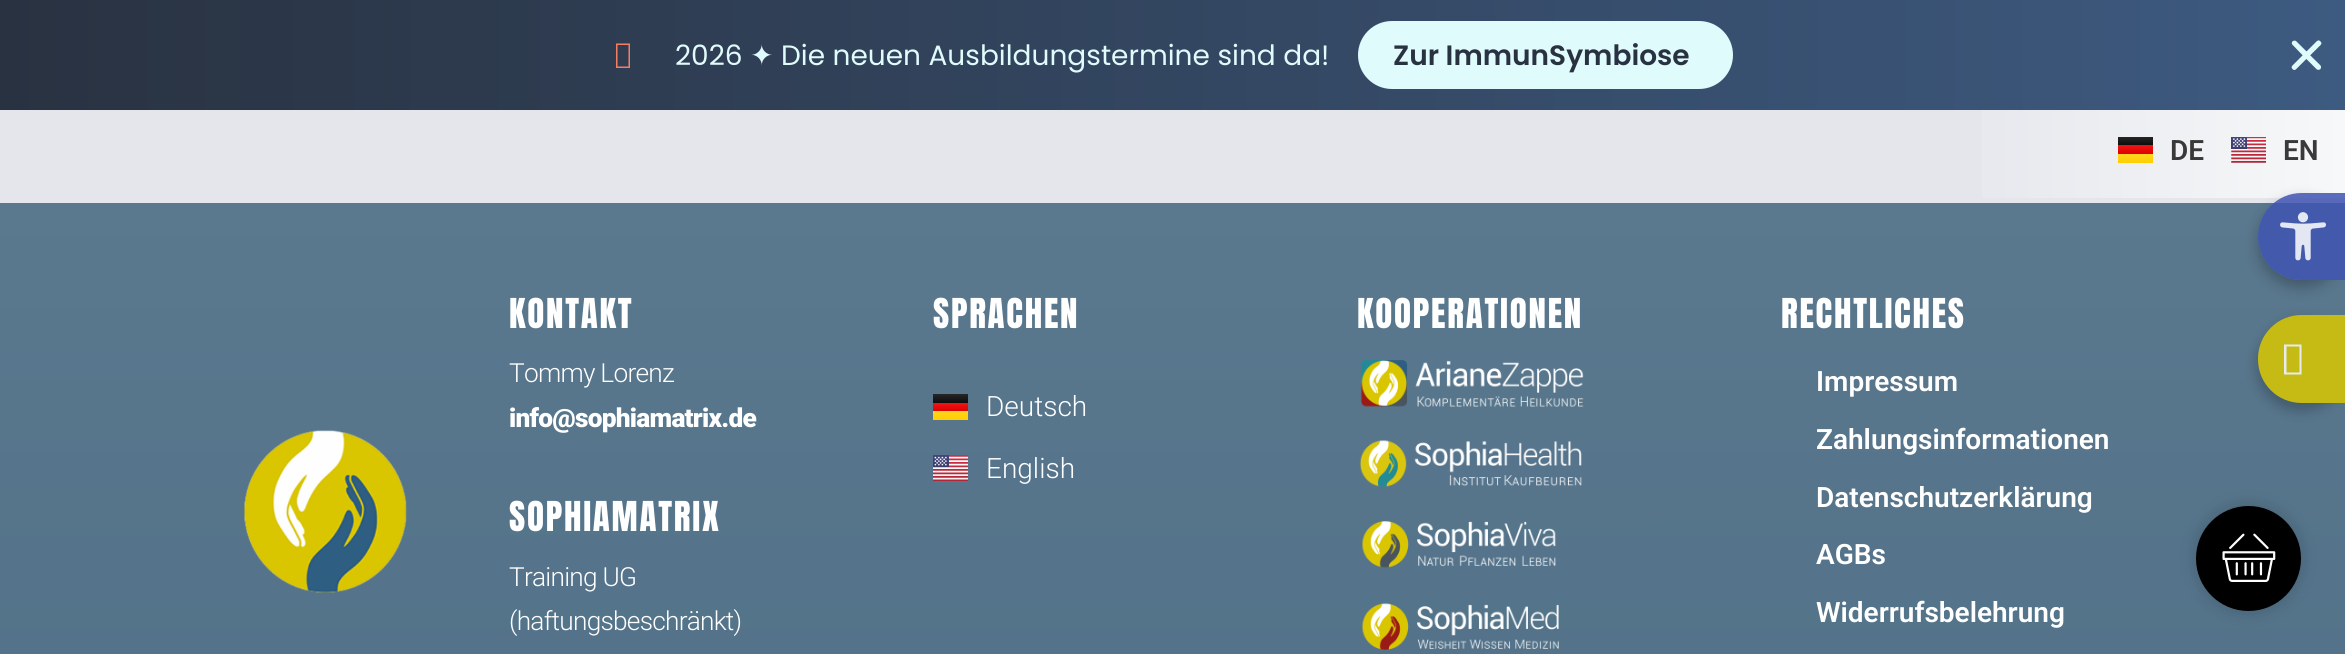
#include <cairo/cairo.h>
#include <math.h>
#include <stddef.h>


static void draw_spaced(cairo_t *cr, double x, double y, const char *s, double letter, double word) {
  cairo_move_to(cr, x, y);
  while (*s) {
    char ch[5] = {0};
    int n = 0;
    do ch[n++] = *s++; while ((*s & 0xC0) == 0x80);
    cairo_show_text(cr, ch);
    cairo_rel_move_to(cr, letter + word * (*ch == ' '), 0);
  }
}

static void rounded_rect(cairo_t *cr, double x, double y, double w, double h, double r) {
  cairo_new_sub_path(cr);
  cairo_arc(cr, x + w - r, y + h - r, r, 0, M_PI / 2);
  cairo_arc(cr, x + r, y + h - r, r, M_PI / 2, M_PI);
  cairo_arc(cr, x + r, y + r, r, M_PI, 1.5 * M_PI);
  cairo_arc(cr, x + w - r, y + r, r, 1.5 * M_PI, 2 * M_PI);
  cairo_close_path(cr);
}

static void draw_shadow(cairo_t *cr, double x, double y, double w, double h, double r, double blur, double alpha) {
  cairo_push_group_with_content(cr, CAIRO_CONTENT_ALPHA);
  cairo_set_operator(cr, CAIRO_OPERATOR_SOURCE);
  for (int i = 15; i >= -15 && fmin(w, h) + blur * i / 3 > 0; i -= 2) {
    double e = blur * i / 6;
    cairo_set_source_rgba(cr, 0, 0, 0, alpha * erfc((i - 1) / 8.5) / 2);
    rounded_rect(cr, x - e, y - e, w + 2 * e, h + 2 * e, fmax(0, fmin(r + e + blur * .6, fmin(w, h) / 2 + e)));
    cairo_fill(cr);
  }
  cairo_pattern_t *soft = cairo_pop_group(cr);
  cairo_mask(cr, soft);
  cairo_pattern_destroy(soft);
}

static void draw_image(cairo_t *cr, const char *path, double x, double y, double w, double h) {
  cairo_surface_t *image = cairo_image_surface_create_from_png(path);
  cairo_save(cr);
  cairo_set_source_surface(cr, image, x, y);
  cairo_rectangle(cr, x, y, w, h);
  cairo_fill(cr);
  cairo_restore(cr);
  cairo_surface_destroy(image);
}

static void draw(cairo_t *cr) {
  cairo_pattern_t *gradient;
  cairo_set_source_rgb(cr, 1, 1, 1);
  cairo_paint(cr);
  gradient = cairo_pattern_create_linear(1172, -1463, 1173, 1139);
  cairo_pattern_add_color_stop_rgba(gradient, 0, 113 / 255.0, 138 / 255.0, 156 / 255.0, 1);
  cairo_pattern_add_color_stop_rgba(gradient, 1, 77 / 255.0, 110 / 255.0, 134 / 255.0, 1);
  cairo_set_source(cr, gradient);
  cairo_pattern_destroy(gradient);
  cairo_rectangle(cr, 0, 203, 2345, 451);
  cairo_fill(cr);
  gradient = cairo_pattern_create_linear(0, 55, 2345, 55);
  cairo_pattern_add_color_stop_rgba(gradient, 0, 41 / 255.0, 50 / 255.0, 65 / 255.0, 1);
  cairo_pattern_add_color_stop_rgba(gradient, 1, 61 / 255.0, 90 / 255.0, 128 / 255.0, 1);
  cairo_set_source(cr, gradient);
  cairo_pattern_destroy(gradient);
  cairo_rectangle(cr, 0, 0, 2345, 110);
  cairo_fill(cr);
  cairo_set_source_rgb(cr, 245 / 255.0, 126 / 255.0, 97 / 255.0);
  cairo_new_path(cr);
  cairo_move_to(cr, 616, 68);
  cairo_line_to(cr, 616, 43.5);
  cairo_line_to(cr, 630, 43.5);
  cairo_line_to(cr, 630, 68);
  cairo_close_path(cr);
  cairo_move_to(cr, 617.5, 66.5);
  cairo_line_to(cr, 628.5, 66.5);
  cairo_line_to(cr, 628.5, 45);
  cairo_line_to(cr, 617.5, 45);
  cairo_close_path(cr);
  cairo_fill(cr);
  cairo_set_source_rgb(cr, 224 / 255.0, 251 / 255.0, 252 / 255.0);
  rounded_rect(cr, 1358, 21, 375, 68, 34);
  cairo_fill(cr);
  draw_image(cr, "images/1.png", 2291, 40, 31, 30);
  cairo_set_source_rgb(cr, 229 / 255.0, 230 / 255.0, 236 / 255.0);
  cairo_rectangle(cr, 0, 110, 2345, 93);
  cairo_fill(cr);
  gradient = cairo_pattern_create_linear(2345, 154, 1923, 154);
  cairo_pattern_add_color_stop_rgba(gradient, 0, 247 / 255.0, 248 / 255.0, 249 / 255.0, 1);
  cairo_pattern_add_color_stop_rgba(gradient, 1, 229 / 255.0, 230 / 255.0, 236 / 255.0, 1);
  cairo_set_source(cr, gradient);
  cairo_pattern_destroy(gradient);
  cairo_rectangle(cr, 1982, 110, 363, 88);
  cairo_fill(cr);
  gradient = cairo_pattern_create_linear(2136, 137, 2136, 145);
  cairo_pattern_add_color_stop_rgba(gradient, 0, 38 / 255.0, 38 / 255.0, 38 / 255.0, 1);
  cairo_pattern_add_color_stop_rgba(gradient, 1, 13 / 255.0, 13 / 255.0, 13 / 255.0, 1);
  cairo_set_source(cr, gradient);
  cairo_pattern_destroy(gradient);
  cairo_rectangle(cr, 2118, 137, 35, 8);
  cairo_fill(cr);
  gradient = cairo_pattern_create_linear(2136, 145, 2136, 154);
  cairo_pattern_add_color_stop_rgba(gradient, 0, 240 / 255.0, 21 / 255.0, 21 / 255.0, 1);
  cairo_pattern_add_color_stop_rgba(gradient, 1, 222 / 255.0, 0, 0, 1);
  cairo_set_source(cr, gradient);
  cairo_pattern_destroy(gradient);
  cairo_rectangle(cr, 2118, 145, 35, 9);
  cairo_fill(cr);
  gradient = cairo_pattern_create_linear(2136, 154, 2136, 163);
  cairo_pattern_add_color_stop_rgba(gradient, 0, 1, 213 / 255.0, 33 / 255.0, 1);
  cairo_pattern_add_color_stop_rgba(gradient, 1, 1, 207 / 255.0, 0, 1);
  cairo_set_source(cr, gradient);
  cairo_pattern_destroy(gradient);
  cairo_rectangle(cr, 2118, 154, 35, 9);
  cairo_fill(cr);
  draw_image(cr, "images/2.png", 2231, 137, 35, 26);
  cairo_save(cr);
  cairo_set_fill_rule(cr, CAIRO_FILL_RULE_EVEN_ODD);
  cairo_new_path(cr);
  cairo_move_to(cr, 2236, 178);
  cairo_line_to(cr, 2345, 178);
  cairo_line_to(cr, 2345, 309);
  cairo_line_to(cr, 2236, 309);
  cairo_close_path(cr);
  cairo_move_to(cr, 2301.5, 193);
  cairo_line_to(cr, 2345, 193);
  cairo_line_to(cr, 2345, 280);
  cairo_line_to(cr, 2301.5, 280);
  cairo_curve_to(cr, 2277.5, 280, 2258, 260.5, 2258, 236.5);
  cairo_curve_to(cr, 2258, 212.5, 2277.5, 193, 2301.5, 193);
  cairo_close_path(cr);
  cairo_clip(cr);
  cairo_set_source_rgb(cr, 0, 0, 0);
  draw_shadow(cr, 2258, 200, 87, 87, 43.5, 7, 0.26);
  cairo_restore(cr);
  cairo_set_source_rgba(cr, 64 / 255.0, 84 / 255.0, 178 / 255.0, 0.85);
  cairo_new_path(cr);
  cairo_move_to(cr, 2301.5, 193);
  cairo_line_to(cr, 2345, 193);
  cairo_line_to(cr, 2345, 280);
  cairo_line_to(cr, 2301.5, 280);
  cairo_curve_to(cr, 2277.5, 280, 2258, 260.5, 2258, 236.5);
  cairo_curve_to(cr, 2258, 212.5, 2277.5, 193, 2301.5, 193);
  cairo_close_path(cr);
  cairo_fill(cr);
  draw_image(cr, "images/3.png", 2280, 212, 46, 49);
  draw_image(cr, "images/4.png", 244, 430, 163, 163);
  gradient = cairo_pattern_create_linear(951, 394, 951, 403);
  cairo_pattern_add_color_stop_rgba(gradient, 0, 38 / 255.0, 38 / 255.0, 38 / 255.0, 1);
  cairo_pattern_add_color_stop_rgba(gradient, 1, 13 / 255.0, 13 / 255.0, 13 / 255.0, 1);
  cairo_set_source(cr, gradient);
  cairo_pattern_destroy(gradient);
  cairo_rectangle(cr, 933, 394, 35, 9);
  cairo_fill(cr);
  gradient = cairo_pattern_create_linear(951, 403, 951, 411);
  cairo_pattern_add_color_stop_rgba(gradient, 0, 240 / 255.0, 21 / 255.0, 21 / 255.0, 1);
  cairo_pattern_add_color_stop_rgba(gradient, 1, 222 / 255.0, 0, 0, 1);
  cairo_set_source(cr, gradient);
  cairo_pattern_destroy(gradient);
  cairo_rectangle(cr, 933, 403, 35, 8);
  cairo_fill(cr);
  gradient = cairo_pattern_create_linear(951, 411, 951, 420);
  cairo_pattern_add_color_stop_rgba(gradient, 0, 1, 213 / 255.0, 33 / 255.0, 1);
  cairo_pattern_add_color_stop_rgba(gradient, 1, 1, 207 / 255.0, 0, 1);
  cairo_set_source(cr, gradient);
  cairo_pattern_destroy(gradient);
  cairo_rectangle(cr, 933, 411, 35, 9);
  cairo_fill(cr);
  draw_image(cr, "images/5.png", 933, 455, 35, 26);
  draw_image(cr, "images/6.png", 1360, 360, 224, 47);
  draw_image(cr, "images/7.png", 1359, 440, 223, 47);
  draw_image(cr, "images/8.png", 1362, 521, 194, 47);
  draw_image(cr, "images/9.png", 1362, 603, 197, 47);
  cairo_set_source_rgb(cr, 13 / 255.0, 18 / 255.0, 21 / 255.0);
  draw_shadow(cr, 2258, 322, 87, 88, 43.5, 7, 0.3);
  cairo_set_source_rgb(cr, 198 / 255.0, 186 / 255.0, 21 / 255.0);
  cairo_new_path(cr);
  cairo_move_to(cr, 2301.5, 315);
  cairo_line_to(cr, 2345, 315);
  cairo_line_to(cr, 2345, 403);
  cairo_line_to(cr, 2301.5, 403);
  cairo_curve_to(cr, 2277.5, 403, 2258, 383.5, 2258, 359.5);
  cairo_line_to(cr, 2258, 358.5);
  cairo_curve_to(cr, 2258, 334.5, 2277.5, 315, 2301.5, 315);
  cairo_close_path(cr);
  cairo_fill(cr);
  cairo_set_source_rgb(cr, 230 / 255.0, 235 / 255.0, 238 / 255.0);
  cairo_new_path(cr);
  cairo_move_to(cr, 2284, 374.5);
  cairo_line_to(cr, 2284, 344.5);
  cairo_line_to(cr, 2301.5, 344.5);
  cairo_line_to(cr, 2301.5, 374.5);
  cairo_close_path(cr);
  cairo_move_to(cr, 2286.5, 372.5);
  cairo_line_to(cr, 2299.5, 372.5);
  cairo_line_to(cr, 2299.5, 346.5);
  cairo_line_to(cr, 2286.5, 346.5);
  cairo_close_path(cr);
  cairo_fill(cr);
  cairo_set_source_rgb(cr, 0, 0, 0);
  draw_shadow(cr, 2196, 506, 105, 105, 52.5, 9, 0.19);
  cairo_set_source_rgb(cr, 0, 0, 0);
  cairo_arc(cr, 2248.5, 558.5, 52.5, 0, 2 * M_PI);
  cairo_fill(cr);
  draw_image(cr, "images/10.png", 2222, 533, 54, 49);
  cairo_select_font_face(cr, "Poppins", CAIRO_FONT_SLANT_NORMAL, CAIRO_FONT_WEIGHT_NORMAL);
  cairo_set_font_size(cr, 28);
  cairo_set_source_rgb(cr, 224 / 255.0, 251 / 255.0, 252 / 255.0);
  cairo_move_to(cr, 675, 65);
  cairo_show_text(cr, "2026");
  cairo_select_font_face(cr, "DejaVu Sans", CAIRO_FONT_SLANT_NORMAL, CAIRO_FONT_WEIGHT_NORMAL);
  cairo_move_to(cr, 750, 65);
  cairo_show_text(cr, "✦");
  cairo_select_font_face(cr, "Poppins", CAIRO_FONT_SLANT_NORMAL, CAIRO_FONT_WEIGHT_NORMAL);
  cairo_move_to(cr, 781, 65);
  cairo_show_text(cr, "Die neuen Ausbildungstermine sind da!");
  cairo_select_font_face(cr, "Poppins SemiBold", CAIRO_FONT_SLANT_NORMAL, CAIRO_FONT_WEIGHT_NORMAL);
  cairo_set_source_rgb(cr, 41 / 255.0, 50 / 255.0, 65 / 255.0);
  cairo_move_to(cr, 1393, 65);
  cairo_show_text(cr, "Zur ImmunSymbiose");
  cairo_select_font_face(cr, "Roboto SemiBold", CAIRO_FONT_SLANT_NORMAL, CAIRO_FONT_WEIGHT_NORMAL);
  cairo_set_source_rgb(cr, 57 / 255.0, 57 / 255.0, 57 / 255.0);
  cairo_move_to(cr, 2170, 160);
  cairo_show_text(cr, "DE");
  cairo_move_to(cr, 2283, 160);
  cairo_show_text(cr, "EN");
  cairo_select_font_face(cr, "Anton", CAIRO_FONT_SLANT_NORMAL, CAIRO_FONT_WEIGHT_NORMAL);
  cairo_set_font_size(cr, 35);
  cairo_set_source_rgb(cr, 1, 1, 1);
  draw_spaced(cr, 509, 328, "KONTAKT", 1.75, 0);
  cairo_select_font_face(cr, "Roboto Light", CAIRO_FONT_SLANT_NORMAL, CAIRO_FONT_WEIGHT_NORMAL);
  cairo_set_font_size(cr, 26.25);
  draw_spaced(cr, 509, 382, "Tommy Lorenz", -0.75, 0);
  cairo_select_font_face(cr, "Roboto Black", CAIRO_FONT_SLANT_NORMAL, CAIRO_FONT_WEIGHT_NORMAL);
  draw_spaced(cr, 509, 427, "info@sophiamatrix.de", -0.75, 0);
  cairo_select_font_face(cr, "Anton", CAIRO_FONT_SLANT_NORMAL, CAIRO_FONT_WEIGHT_NORMAL);
  cairo_set_font_size(cr, 35);
  draw_spaced(cr, 509, 531, "SOPHIAMATRIX", 1.75, 0);
  cairo_select_font_face(cr, "Roboto Light", CAIRO_FONT_SLANT_NORMAL, CAIRO_FONT_WEIGHT_NORMAL);
  cairo_set_font_size(cr, 26.25);
  draw_spaced(cr, 509, 586, "Training UG", -0.75, 0);
  draw_spaced(cr, 509, 630, "(haftungsbeschränkt)", -0.75, 0);
  cairo_select_font_face(cr, "Anton", CAIRO_FONT_SLANT_NORMAL, CAIRO_FONT_WEIGHT_NORMAL);
  cairo_set_font_size(cr, 35);
  draw_spaced(cr, 933, 328, "SPRACHEN", 1.75, 0);
  cairo_select_font_face(cr, "Roboto Light", CAIRO_FONT_SLANT_NORMAL, CAIRO_FONT_WEIGHT_NORMAL);
  cairo_set_font_size(cr, 28);
  cairo_move_to(cr, 986, 416);
  cairo_show_text(cr, "Deutsch");
  cairo_move_to(cr, 986, 478);
  cairo_show_text(cr, "English");
  cairo_select_font_face(cr, "Anton", CAIRO_FONT_SLANT_NORMAL, CAIRO_FONT_WEIGHT_NORMAL);
  cairo_set_font_size(cr, 35);
  draw_spaced(cr, 1357, 328, "KOOPERATIONEN", 1.75, 0);
  draw_spaced(cr, 1781, 328, "RECHTLICHES", 1.75, 0);
  cairo_select_font_face(cr, "Roboto SemiBold", CAIRO_FONT_SLANT_NORMAL, CAIRO_FONT_WEIGHT_NORMAL);
  cairo_set_font_size(cr, 28);
  cairo_move_to(cr, 1816, 391);
  cairo_show_text(cr, "Impressum");
  cairo_move_to(cr, 1816, 449);
  cairo_show_text(cr, "Zahlungsinformationen");
  cairo_move_to(cr, 1816, 507);
  cairo_show_text(cr, "Datenschutzerklärung");
  cairo_move_to(cr, 1816, 564);
  cairo_show_text(cr, "AGBs");
  cairo_move_to(cr, 1816, 622);
  cairo_show_text(cr, "Widerrufsbelehrung");
}

int main(void) {
  cairo_surface_t *surface = cairo_image_surface_create(CAIRO_FORMAT_RGB24, 2345, 654);
  cairo_t *cr = cairo_create(surface);
  cairo_font_options_t *options = cairo_font_options_create();
  cairo_font_options_set_hint_metrics(options, CAIRO_HINT_METRICS_OFF);
  cairo_font_options_set_hint_style(options, CAIRO_HINT_STYLE_NONE);
  cairo_set_font_options(cr, options);
  cairo_set_miter_limit(cr, 4);
  draw(cr);
  cairo_surface_write_to_png(surface, "out.png");
  cairo_font_options_destroy(options);
  cairo_destroy(cr);
  cairo_surface_destroy(surface);
  return 0;
}
